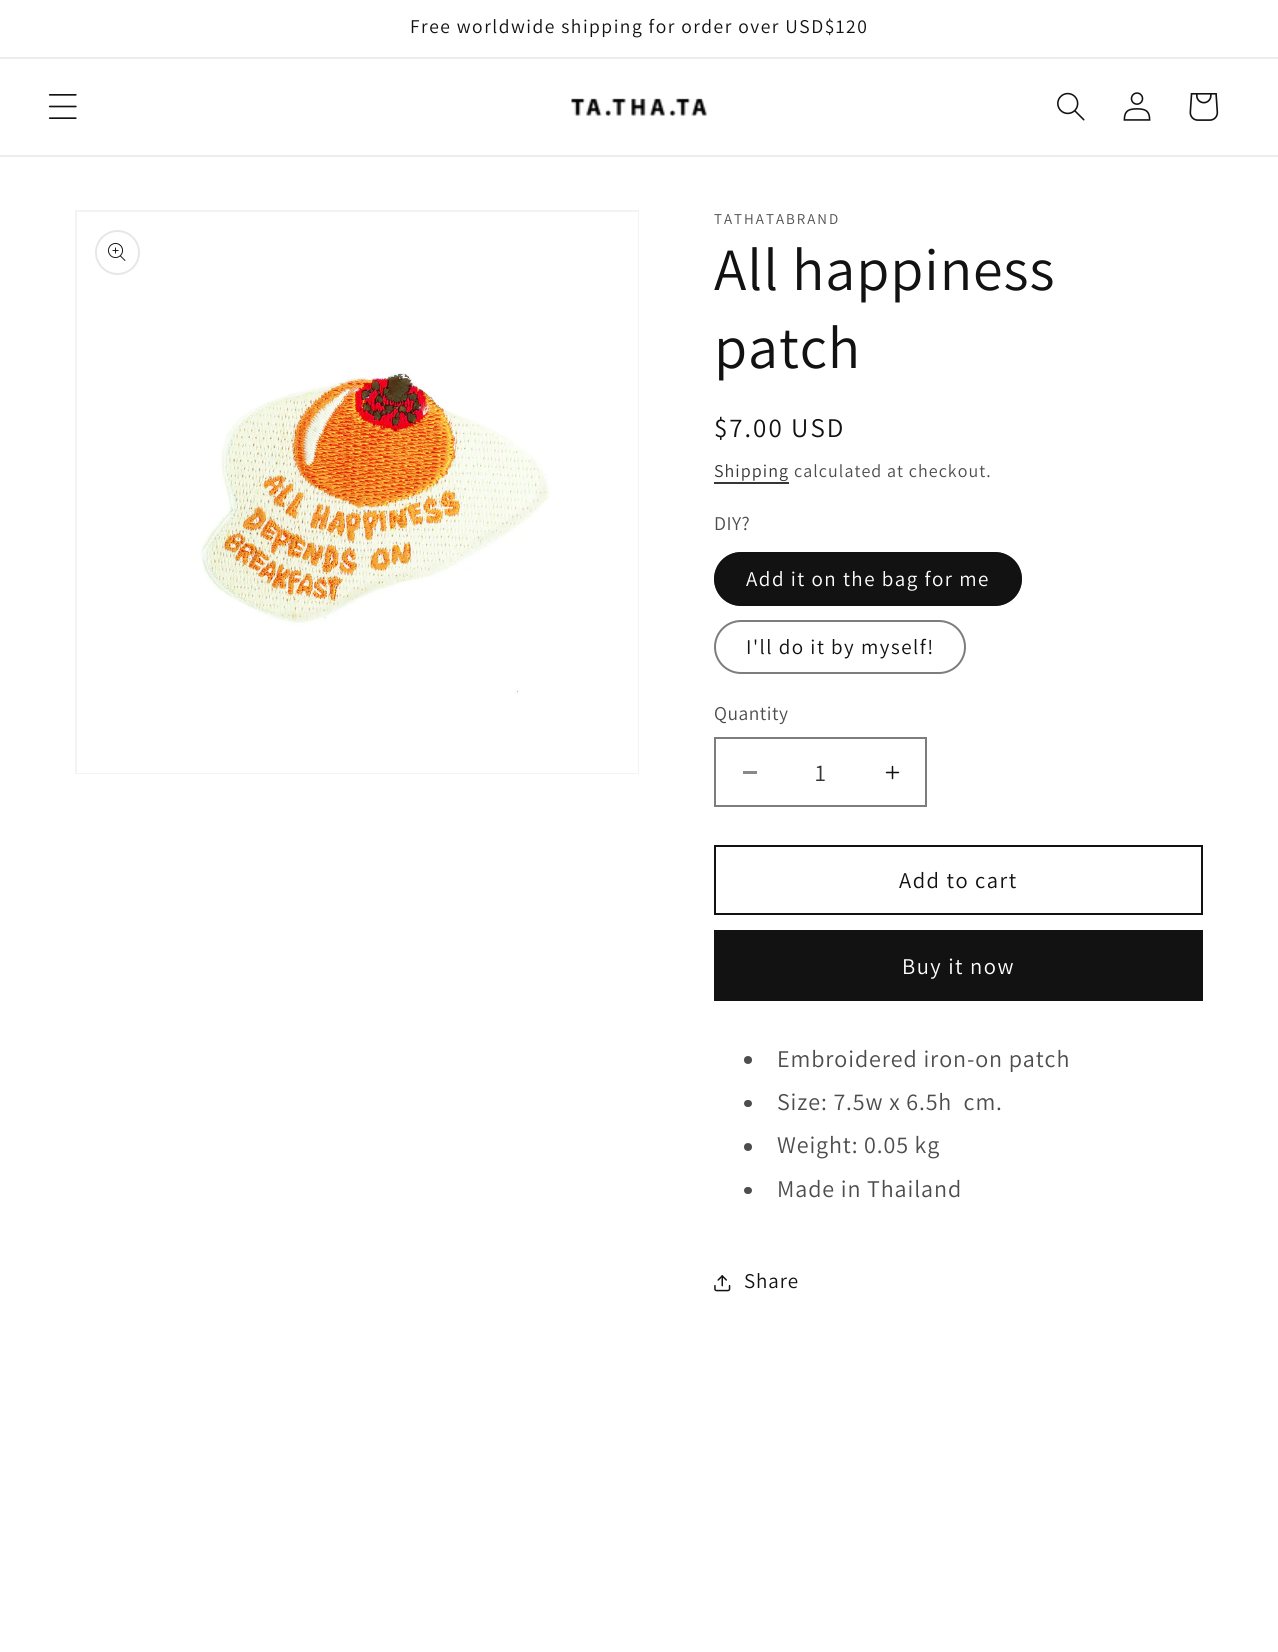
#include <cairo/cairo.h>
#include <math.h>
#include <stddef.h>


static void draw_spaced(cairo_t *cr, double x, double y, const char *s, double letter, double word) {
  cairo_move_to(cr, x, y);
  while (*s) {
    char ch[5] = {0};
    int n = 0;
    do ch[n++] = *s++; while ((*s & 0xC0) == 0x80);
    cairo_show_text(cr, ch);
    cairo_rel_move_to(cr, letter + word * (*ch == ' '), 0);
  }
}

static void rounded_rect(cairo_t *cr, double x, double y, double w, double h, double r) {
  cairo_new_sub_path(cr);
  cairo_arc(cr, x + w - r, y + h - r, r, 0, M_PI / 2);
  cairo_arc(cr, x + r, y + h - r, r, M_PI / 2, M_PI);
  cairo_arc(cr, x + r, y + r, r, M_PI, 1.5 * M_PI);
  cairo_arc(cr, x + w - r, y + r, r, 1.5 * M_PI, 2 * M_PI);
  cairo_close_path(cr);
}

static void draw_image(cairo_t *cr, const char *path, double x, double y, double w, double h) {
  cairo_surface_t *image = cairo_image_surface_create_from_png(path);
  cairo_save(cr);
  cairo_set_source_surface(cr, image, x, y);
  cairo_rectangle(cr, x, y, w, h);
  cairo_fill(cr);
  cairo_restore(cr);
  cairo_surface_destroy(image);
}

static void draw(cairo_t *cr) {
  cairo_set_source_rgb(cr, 1, 1, 1);
  cairo_paint(cr);
  cairo_set_source_rgb(cr, 236 / 255.0, 236 / 255.0, 236 / 255.0);
  cairo_rectangle(cr, 0, 57, 1278, 2);
  cairo_fill(cr);
  cairo_rectangle(cr, 0, 155, 1278, 2);
  cairo_fill(cr);
  draw_image(cr, "images/1.png", 48, 94, 29, 25);
  draw_image(cr, "images/2.png", 571, 98, 136, 18);
  draw_image(cr, "images/3.png", 1057, 92, 28, 29);
  draw_image(cr, "images/4.png", 1123, 92, 28, 29);
  draw_image(cr, "images/5.png", 1189, 93, 30, 28);
  cairo_rectangle(cr, 76, 211, 562, 562);
  cairo_set_source_rgb(cr, 243 / 255.0, 243 / 255.0, 243 / 255.0);
  cairo_stroke(cr);
  draw_image(cr, "images/6.png", 77, 212, 561, 561);
  cairo_arc(cr, 117.5, 252.5, 21.5, 0, 2 * M_PI);
  cairo_set_source_rgb(cr, 231 / 255.0, 231 / 255.0, 231 / 255.0);
  cairo_stroke(cr);
  draw_image(cr, "images/7.png", 108, 243, 18, 18);
  cairo_set_source_rgb(cr, 54 / 255.0, 54 / 255.0, 54 / 255.0);
  cairo_rectangle(cr, 714, 482, 75, 2);
  cairo_fill(cr);
  cairo_set_source_rgb(cr, 18 / 255.0, 18 / 255.0, 18 / 255.0);
  rounded_rect(cr, 714, 552, 308, 54, 27);
  cairo_fill(cr);
  rounded_rect(cr, 715, 553, 306, 52, 26);
  cairo_set_source_rgba(cr, 18 / 255.0, 18 / 255.0, 18 / 255.0, 0.55);
  cairo_stroke(cr);
  rounded_rect(cr, 715, 621, 250, 52, 26);
  cairo_set_source_rgb(cr, 125 / 255.0, 125 / 255.0, 125 / 255.0);
  cairo_stroke(cr);
  cairo_set_source_rgb(cr, 137 / 255.0, 137 / 255.0, 137 / 255.0);
  cairo_rectangle(cr, 743, 771, 14, 3);
  cairo_fill(cr);
  draw_image(cr, "images/8.png", 885, 765, 15, 15);
  cairo_rectangle(cr, 715, 738, 211, 68);
  cairo_set_source_rgb(cr, 125 / 255.0, 125 / 255.0, 125 / 255.0);
  cairo_stroke(cr);
  cairo_rectangle(cr, 715, 846, 487, 68);
  cairo_set_source_rgb(cr, 18 / 255.0, 18 / 255.0, 18 / 255.0);
  cairo_stroke(cr);
  cairo_rectangle(cr, 714, 930, 489, 71);
  cairo_fill(cr);
  cairo_set_source_rgb(cr, 77 / 255.0, 77 / 255.0, 77 / 255.0);
  cairo_arc(cr, 748, 1060, 4, 0, 2 * M_PI);
  cairo_fill(cr);
  rounded_rect(cr, 744, 1100, 8, 7, 3.5);
  cairo_fill(cr);
  cairo_arc(cr, 748, 1147, 4, 0, 2 * M_PI);
  cairo_fill(cr);
  rounded_rect(cr, 744, 1187, 8, 7, 3.5);
  cairo_fill(cr);
  draw_image(cr, "images/9.png", 714, 1275, 17, 17);
  cairo_select_font_face(cr, "Assistant", CAIRO_FONT_SLANT_NORMAL, CAIRO_FONT_WEIGHT_NORMAL);
  cairo_set_font_size(cr, 19.5);
  cairo_set_source_rgb(cr, 18 / 255.0, 18 / 255.0, 18 / 255.0);
  draw_spaced(cr, 410, 33, "Free worldwide shipping for order over USD$120", 1.5, 0);
  cairo_set_font_size(cr, 15);
  cairo_set_source_rgb(cr, 77 / 255.0, 77 / 255.0, 77 / 255.0);
  draw_spaced(cr, 714, 224, "TATHATABRAND", 2, 0);
  cairo_set_font_size(cr, 60);
  cairo_set_source_rgb(cr, 18 / 255.0, 18 / 255.0, 18 / 255.0);
  draw_spaced(cr, 714, 290, "All happiness", 0.9, 0);
  draw_spaced(cr, 714, 368, "patch", 0.9, 0);
  cairo_set_font_size(cr, 27);
  draw_spaced(cr, 714, 437, "$7.00 USD", 2, 0);
  cairo_set_font_size(cr, 18);
  cairo_set_source_rgb(cr, 54 / 255.0, 54 / 255.0, 54 / 255.0);
  draw_spaced(cr, 714, 477, "Shipping", 1.05, 0);
  cairo_set_source_rgb(cr, 77 / 255.0, 77 / 255.0, 77 / 255.0);
  draw_spaced(cr, 794, 477, "calculated at checkout.", 1.05, 0);
  cairo_set_font_size(cr, 19.5);
  draw_spaced(cr, 714, 530, "DIY?", 0.5, 0);
  cairo_set_font_size(cr, 21);
  cairo_set_source_rgb(cr, 1, 1, 1);
  draw_spaced(cr, 746, 586, "Add it on the bag for me", 1.5, 0);
  cairo_set_source_rgb(cr, 18 / 255.0, 18 / 255.0, 18 / 255.0);
  draw_spaced(cr, 746, 654, "I'll do it by myself!", 1.5, 0);
  cairo_set_font_size(cr, 19.5);
  cairo_set_source_rgb(cr, 77 / 255.0, 77 / 255.0, 77 / 255.0);
  draw_spaced(cr, 714, 720, "Quantity", 0.5, 0);
  cairo_set_font_size(cr, 24);
  cairo_set_source_rgb(cr, 54 / 255.0, 54 / 255.0, 54 / 255.0);
  cairo_move_to(cr, 815, 781);
  cairo_show_text(cr, "1");
  cairo_set_font_size(cr, 22.5);
  cairo_set_source_rgb(cr, 18 / 255.0, 18 / 255.0, 18 / 255.0);
  draw_spaced(cr, 899, 888, "Add to cart", 1.5, 0);
  cairo_set_source_rgb(cr, 1, 1, 1);
  draw_spaced(cr, 902, 974, "Buy it now", 1.5, 0);
  cairo_set_font_size(cr, 24);
  cairo_set_source_rgb(cr, 77 / 255.0, 77 / 255.0, 77 / 255.0);
  draw_spaced(cr, 777, 1067, "Embroidered iron-on patch", 0.9, 0);
  draw_spaced(cr, 777, 1110, "Size: 7.5w x 6.5h  cm.", 0.9, 0);
  draw_spaced(cr, 777, 1153, "Weight: 0.05 kg", 0.9, 0);
  draw_spaced(cr, 777, 1197, "Made in Thailand", 0.9, 0);
  cairo_set_font_size(cr, 21);
  cairo_set_source_rgb(cr, 18 / 255.0, 18 / 255.0, 18 / 255.0);
  draw_spaced(cr, 744, 1288, "Share", 0.9, 0);
}

int main(void) {
  cairo_surface_t *surface = cairo_image_surface_create(CAIRO_FORMAT_RGB24, 1278, 1652);
  cairo_t *cr = cairo_create(surface);
  cairo_font_options_t *options = cairo_font_options_create();
  cairo_font_options_set_hint_metrics(options, CAIRO_HINT_METRICS_OFF);
  cairo_font_options_set_hint_style(options, CAIRO_HINT_STYLE_NONE);
  cairo_set_font_options(cr, options);
  cairo_set_miter_limit(cr, 4);
  draw(cr);
  cairo_surface_write_to_png(surface, "out.png");
  cairo_font_options_destroy(options);
  cairo_destroy(cr);
  cairo_surface_destroy(surface);
  return 0;
}
